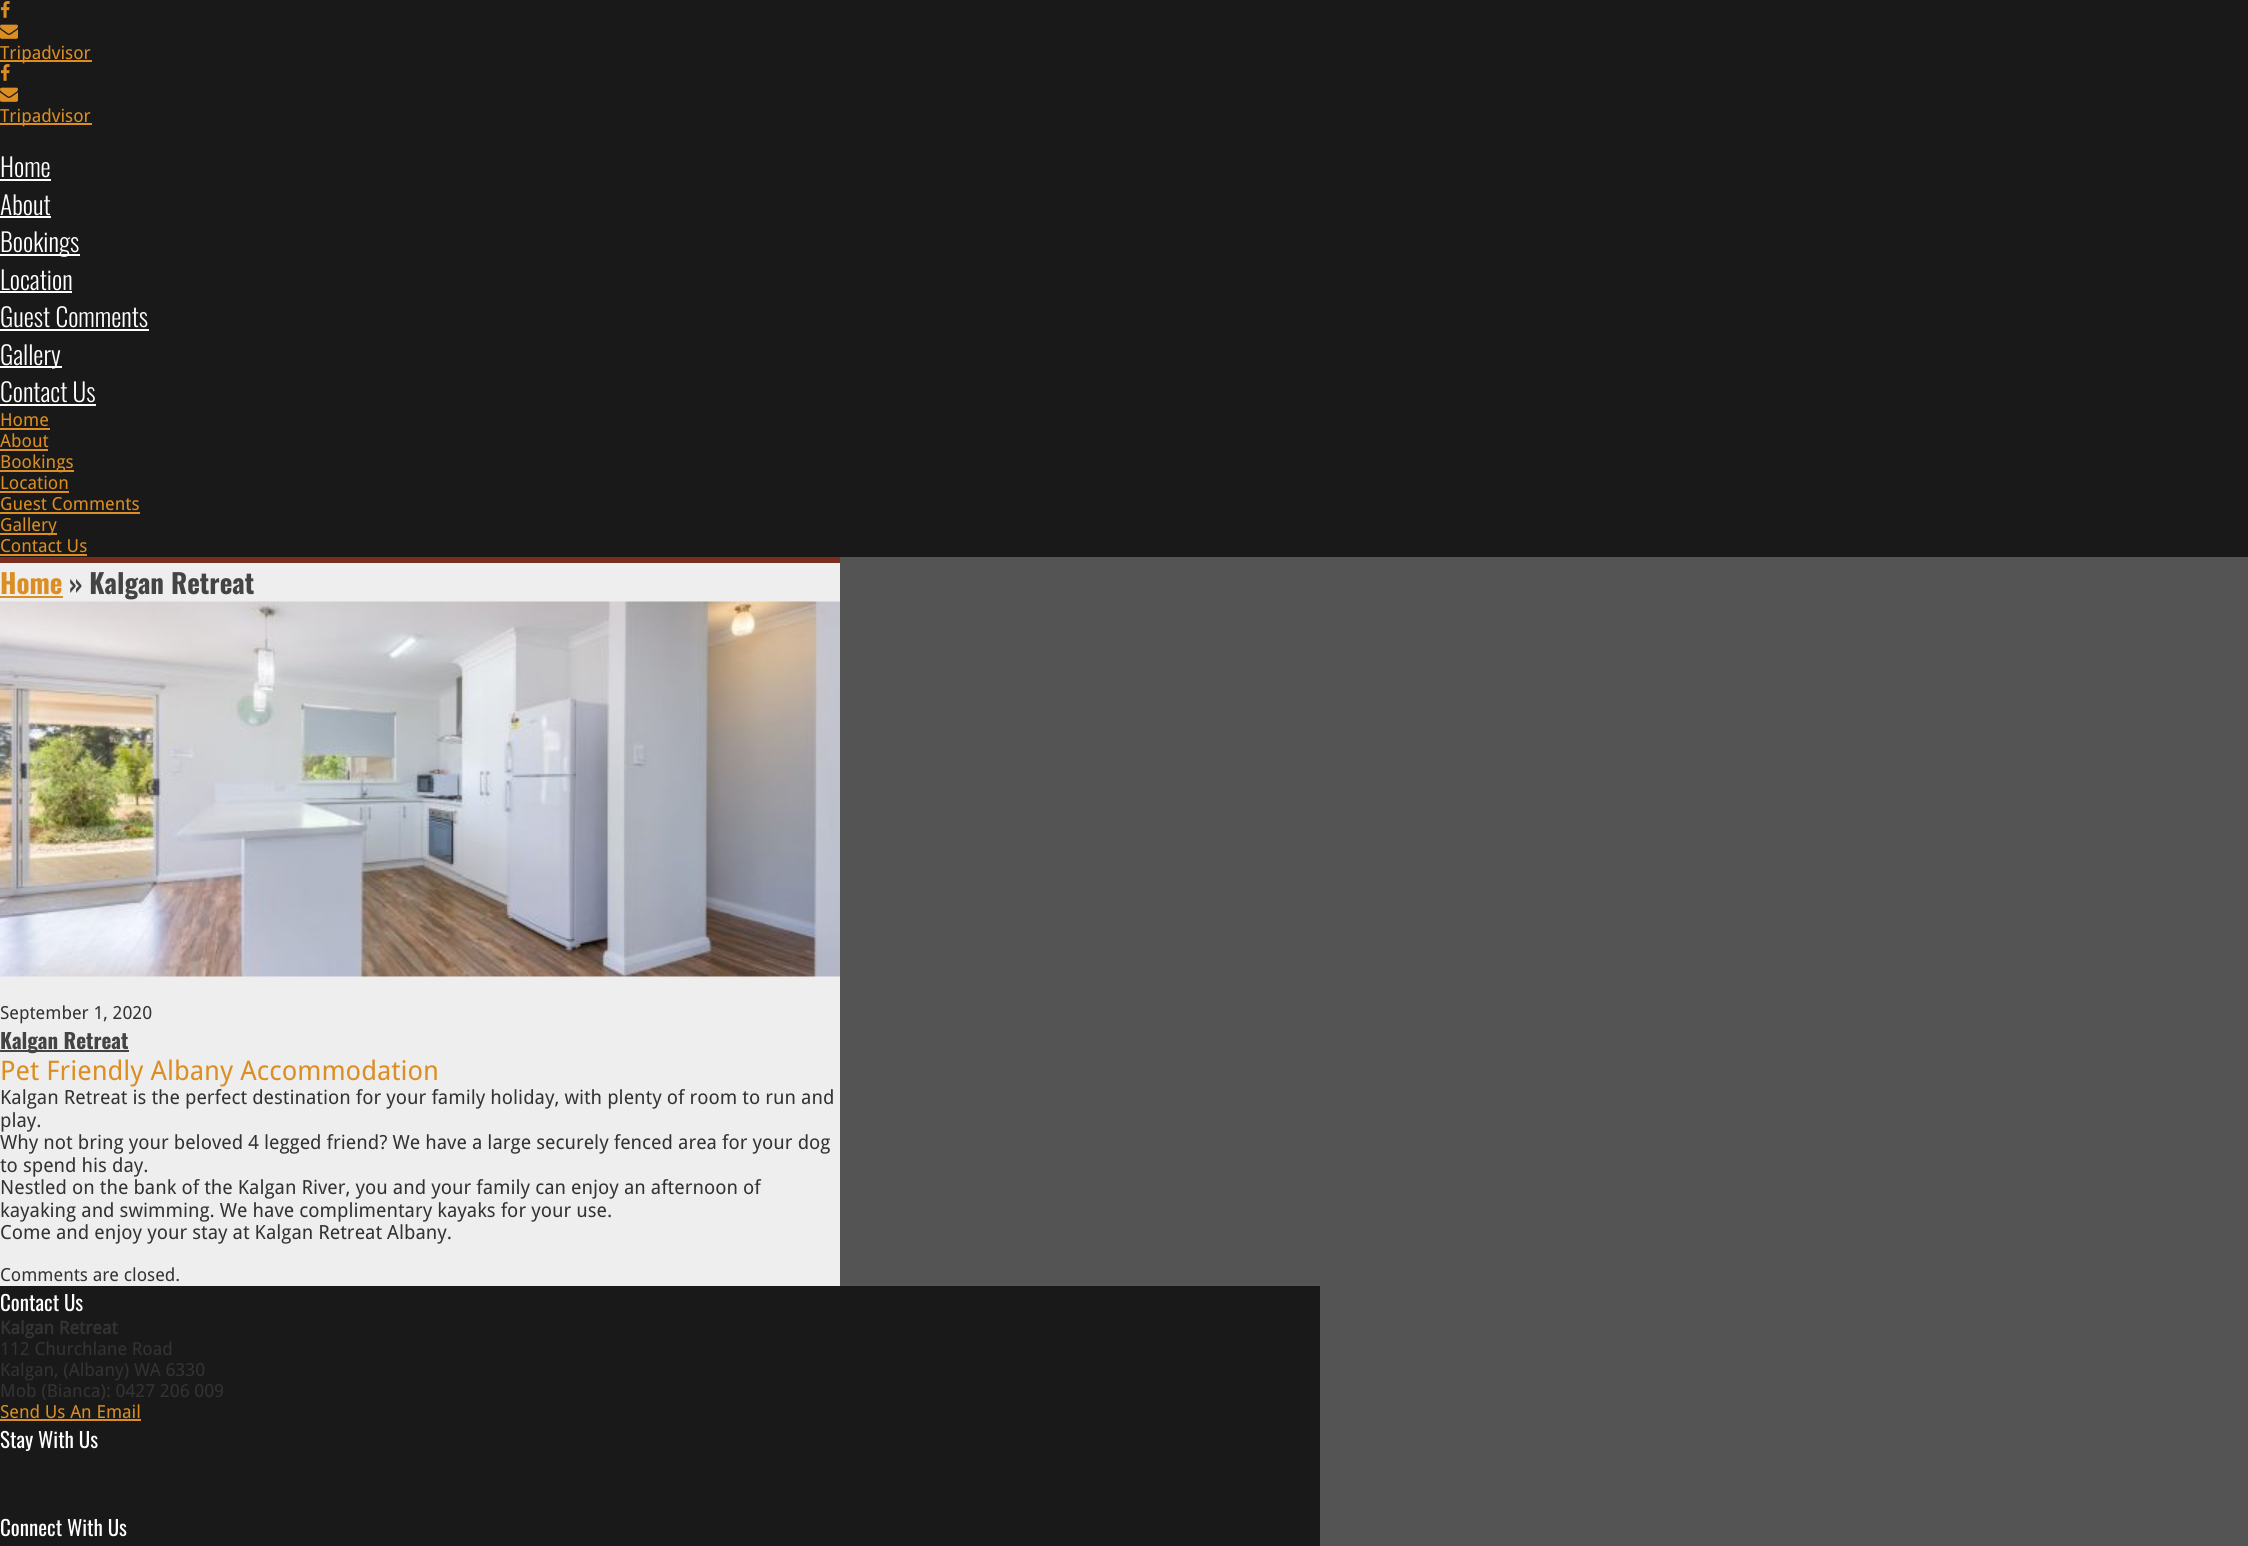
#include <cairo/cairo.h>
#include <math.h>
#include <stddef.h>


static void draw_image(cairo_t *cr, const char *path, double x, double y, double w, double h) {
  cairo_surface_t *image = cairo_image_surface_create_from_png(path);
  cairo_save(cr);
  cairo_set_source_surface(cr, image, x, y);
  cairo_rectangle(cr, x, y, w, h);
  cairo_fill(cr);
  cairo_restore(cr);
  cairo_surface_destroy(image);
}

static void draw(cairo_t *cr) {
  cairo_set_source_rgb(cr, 84 / 255.0, 84 / 255.0, 84 / 255.0);
  cairo_paint(cr);
  cairo_set_source_rgb(cr, 25 / 255.0, 25 / 255.0, 25 / 255.0);
  cairo_rectangle(cr, 0, 0, 2248, 557);
  cairo_fill(cr);
  draw_image(cr, "images/1.png", 0, 1, 10, 17);
  draw_image(cr, "images/2.png", 0, 24, 18, 15);
  cairo_set_source_rgb(cr, 220 / 255.0, 142 / 255.0, 34 / 255.0);
  cairo_rectangle(cr, 0, 60, 92, 2);
  cairo_fill(cr);
  draw_image(cr, "images/1.png", 0, 64, 10, 17);
  draw_image(cr, "images/2.png", 0, 87, 18, 15);
  cairo_rectangle(cr, 0, 123, 92, 2);
  cairo_fill(cr);
  cairo_set_source_rgb(cr, 1, 1, 1);
  cairo_rectangle(cr, 0, 179, 51, 2);
  cairo_fill(cr);
  cairo_rectangle(cr, 0, 216, 51, 2);
  cairo_fill(cr);
  cairo_rectangle(cr, 0, 254, 80, 2);
  cairo_fill(cr);
  cairo_rectangle(cr, 0, 291, 72, 2);
  cairo_fill(cr);
  cairo_rectangle(cr, 0, 329, 149, 2);
  cairo_fill(cr);
  cairo_rectangle(cr, 0, 366, 62, 2);
  cairo_fill(cr);
  cairo_rectangle(cr, 0, 404, 96, 2);
  cairo_fill(cr);
  cairo_set_source_rgb(cr, 220 / 255.0, 142 / 255.0, 34 / 255.0);
  cairo_rectangle(cr, 0, 428, 50, 2);
  cairo_fill(cr);
  cairo_rectangle(cr, 0, 449, 48, 2);
  cairo_fill(cr);
  cairo_rectangle(cr, 0, 470, 74, 2);
  cairo_fill(cr);
  cairo_rectangle(cr, 0, 491, 69, 2);
  cairo_fill(cr);
  cairo_rectangle(cr, 0, 512, 140, 2);
  cairo_fill(cr);
  cairo_rectangle(cr, 0, 533, 57, 2);
  cairo_fill(cr);
  cairo_rectangle(cr, 0, 554, 87, 2);
  cairo_fill(cr);
  cairo_set_source_rgb(cr, 238 / 255.0, 238 / 255.0, 238 / 255.0);
  cairo_rectangle(cr, 0, 563, 840, 723);
  cairo_fill(cr);
  cairo_set_source_rgb(cr, 122 / 255.0, 44 / 255.0, 30 / 255.0);
  cairo_rectangle(cr, 0, 557, 840, 6);
  cairo_fill(cr);
  cairo_set_source_rgb(cr, 220 / 255.0, 142 / 255.0, 34 / 255.0);
  cairo_rectangle(cr, 0, 596, 63, 2);
  cairo_fill(cr);
  draw_image(cr, "images/3.png", 0, 601, 840, 376);
  cairo_set_source_rgb(cr, 68 / 255.0, 68 / 255.0, 68 / 255.0);
  cairo_rectangle(cr, 0, 1050, 129, 2);
  cairo_fill(cr);
  cairo_set_source_rgb(cr, 25 / 255.0, 25 / 255.0, 25 / 255.0);
  cairo_rectangle(cr, 0, 1286, 1320, 260);
  cairo_fill(cr);
  cairo_set_source_rgb(cr, 220 / 255.0, 142 / 255.0, 34 / 255.0);
  cairo_rectangle(cr, 0, 1419, 141, 2);
  cairo_fill(cr);
  cairo_select_font_face(cr, "Droid Sans", CAIRO_FONT_SLANT_NORMAL, CAIRO_FONT_WEIGHT_NORMAL);
  cairo_set_font_size(cr, 18);
  cairo_move_to(cr, 0, 59);
  cairo_show_text(cr, "Tripadvisor");
  cairo_move_to(cr, 0, 122);
  cairo_show_text(cr, "Tripadvisor");
  cairo_select_font_face(cr, "Oswald Light", CAIRO_FONT_SLANT_NORMAL, CAIRO_FONT_WEIGHT_NORMAL);
  cairo_set_font_size(cr, 25.5);
  cairo_set_source_rgb(cr, 1, 1, 1);
  cairo_move_to(cr, 0, 177);
  cairo_show_text(cr, "Home");
  cairo_move_to(cr, 0, 215);
  cairo_show_text(cr, "About");
  cairo_move_to(cr, 0, 252);
  cairo_show_text(cr, "Bookings");
  cairo_move_to(cr, 0, 290);
  cairo_show_text(cr, "Location");
  cairo_move_to(cr, 0, 327);
  cairo_show_text(cr, "Guest Comments");
  cairo_move_to(cr, 0, 365);
  cairo_show_text(cr, "Gallery");
  cairo_move_to(cr, 0, 402);
  cairo_show_text(cr, "Contact Us");
  cairo_select_font_face(cr, "Droid Sans", CAIRO_FONT_SLANT_NORMAL, CAIRO_FONT_WEIGHT_NORMAL);
  cairo_set_font_size(cr, 18);
  cairo_set_source_rgb(cr, 220 / 255.0, 142 / 255.0, 34 / 255.0);
  cairo_move_to(cr, 0, 426);
  cairo_show_text(cr, "Home");
  cairo_move_to(cr, 0, 447);
  cairo_show_text(cr, "About");
  cairo_move_to(cr, 0, 468);
  cairo_show_text(cr, "Bookings");
  cairo_move_to(cr, 0, 489);
  cairo_show_text(cr, "Location");
  cairo_move_to(cr, 0, 510);
  cairo_show_text(cr, "Guest Comments");
  cairo_move_to(cr, 0, 531);
  cairo_show_text(cr, "Gallery");
  cairo_move_to(cr, 0, 552);
  cairo_show_text(cr, "Contact Us");
  cairo_select_font_face(cr, "Oswald", CAIRO_FONT_SLANT_NORMAL, CAIRO_FONT_WEIGHT_BOLD);
  cairo_set_font_size(cr, 27);
  cairo_move_to(cr, 0, 594);
  cairo_show_text(cr, "Home");
  cairo_set_source_rgb(cr, 68 / 255.0, 68 / 255.0, 68 / 255.0);
  cairo_move_to(cr, 69, 594);
  cairo_show_text(cr, "» Kalgan Retreat");
  cairo_select_font_face(cr, "Droid Sans", CAIRO_FONT_SLANT_NORMAL, CAIRO_FONT_WEIGHT_NORMAL);
  cairo_set_font_size(cr, 18);
  cairo_set_source_rgb(cr, 51 / 255.0, 51 / 255.0, 51 / 255.0);
  cairo_move_to(cr, 0, 1019);
  cairo_show_text(cr, "September 1, 2020");
  cairo_select_font_face(cr, "Oswald", CAIRO_FONT_SLANT_NORMAL, CAIRO_FONT_WEIGHT_BOLD);
  cairo_set_font_size(cr, 21);
  cairo_set_source_rgb(cr, 68 / 255.0, 68 / 255.0, 68 / 255.0);
  cairo_move_to(cr, 0, 1049);
  cairo_show_text(cr, "Kalgan Retreat");
  cairo_select_font_face(cr, "Droid Sans", CAIRO_FONT_SLANT_NORMAL, CAIRO_FONT_WEIGHT_NORMAL);
  cairo_set_font_size(cr, 27);
  cairo_set_source_rgb(cr, 220 / 255.0, 142 / 255.0, 34 / 255.0);
  cairo_move_to(cr, 0, 1080);
  cairo_show_text(cr, "Pet Friendly Albany Accommodation");
  cairo_set_font_size(cr, 19.5);
  cairo_set_source_rgb(cr, 51 / 255.0, 51 / 255.0, 51 / 255.0);
  cairo_move_to(cr, 0, 1104);
  cairo_show_text(cr, "Kalgan Retreat is the perfect destination for your family holiday, with plenty of room to run and");
  cairo_move_to(cr, 0, 1127);
  cairo_show_text(cr, "play.");
  cairo_move_to(cr, 0, 1149);
  cairo_show_text(cr, "Why not bring your beloved 4 legged friend? We have a large securely fenced area for your dog");
  cairo_move_to(cr, 0, 1172);
  cairo_show_text(cr, "to spend his day.");
  cairo_move_to(cr, 0, 1194);
  cairo_show_text(cr, "Nestled on the bank of the Kalgan River, you and your family can enjoy an afternoon of");
  cairo_move_to(cr, 0, 1217);
  cairo_show_text(cr, "kayaking and swimming. We have complimentary kayaks for your use.");
  cairo_move_to(cr, 0, 1239);
  cairo_show_text(cr, "Come and enjoy your stay at Kalgan Retreat Albany.");
  cairo_set_font_size(cr, 18);
  cairo_move_to(cr, 0, 1281);
  cairo_show_text(cr, "Comments are closed.");
  cairo_select_font_face(cr, "Oswald", CAIRO_FONT_SLANT_NORMAL, CAIRO_FONT_WEIGHT_NORMAL);
  cairo_set_font_size(cr, 21);
  cairo_set_source_rgb(cr, 1, 1, 1);
  cairo_move_to(cr, 0, 1311);
  cairo_show_text(cr, "Contact Us");
  cairo_select_font_face(cr, "Droid Sans", CAIRO_FONT_SLANT_NORMAL, CAIRO_FONT_WEIGHT_BOLD);
  cairo_set_font_size(cr, 18);
  cairo_set_source_rgb(cr, 51 / 255.0, 51 / 255.0, 51 / 255.0);
  cairo_move_to(cr, 0, 1334);
  cairo_show_text(cr, "Kalgan Retreat");
  cairo_select_font_face(cr, "Droid Sans", CAIRO_FONT_SLANT_NORMAL, CAIRO_FONT_WEIGHT_NORMAL);
  cairo_move_to(cr, 0, 1355);
  cairo_show_text(cr, "112 Churchlane Road");
  cairo_move_to(cr, 0, 1376);
  cairo_show_text(cr, "Kalgan, (Albany) WA 6330");
  cairo_move_to(cr, 0, 1397);
  cairo_show_text(cr, "Mob (Bianca): 0427 206 009");
  cairo_set_source_rgb(cr, 220 / 255.0, 142 / 255.0, 34 / 255.0);
  cairo_move_to(cr, 0, 1418);
  cairo_show_text(cr, "Send Us An Email");
  cairo_select_font_face(cr, "Oswald", CAIRO_FONT_SLANT_NORMAL, CAIRO_FONT_WEIGHT_NORMAL);
  cairo_set_font_size(cr, 21);
  cairo_set_source_rgb(cr, 1, 1, 1);
  cairo_move_to(cr, 0, 1448);
  cairo_show_text(cr, "Stay With Us");
  cairo_move_to(cr, 0, 1536);
  cairo_show_text(cr, "Connect With Us");
}

int main(void) {
  cairo_surface_t *surface = cairo_image_surface_create(CAIRO_FORMAT_RGB24, 2248, 1546);
  cairo_t *cr = cairo_create(surface);
  cairo_font_options_t *options = cairo_font_options_create();
  cairo_font_options_set_hint_metrics(options, CAIRO_HINT_METRICS_OFF);
  cairo_font_options_set_hint_style(options, CAIRO_HINT_STYLE_NONE);
  cairo_set_font_options(cr, options);
  cairo_set_miter_limit(cr, 4);
  draw(cr);
  cairo_surface_write_to_png(surface, "out.png");
  cairo_font_options_destroy(options);
  cairo_destroy(cr);
  cairo_surface_destroy(surface);
  return 0;
}
